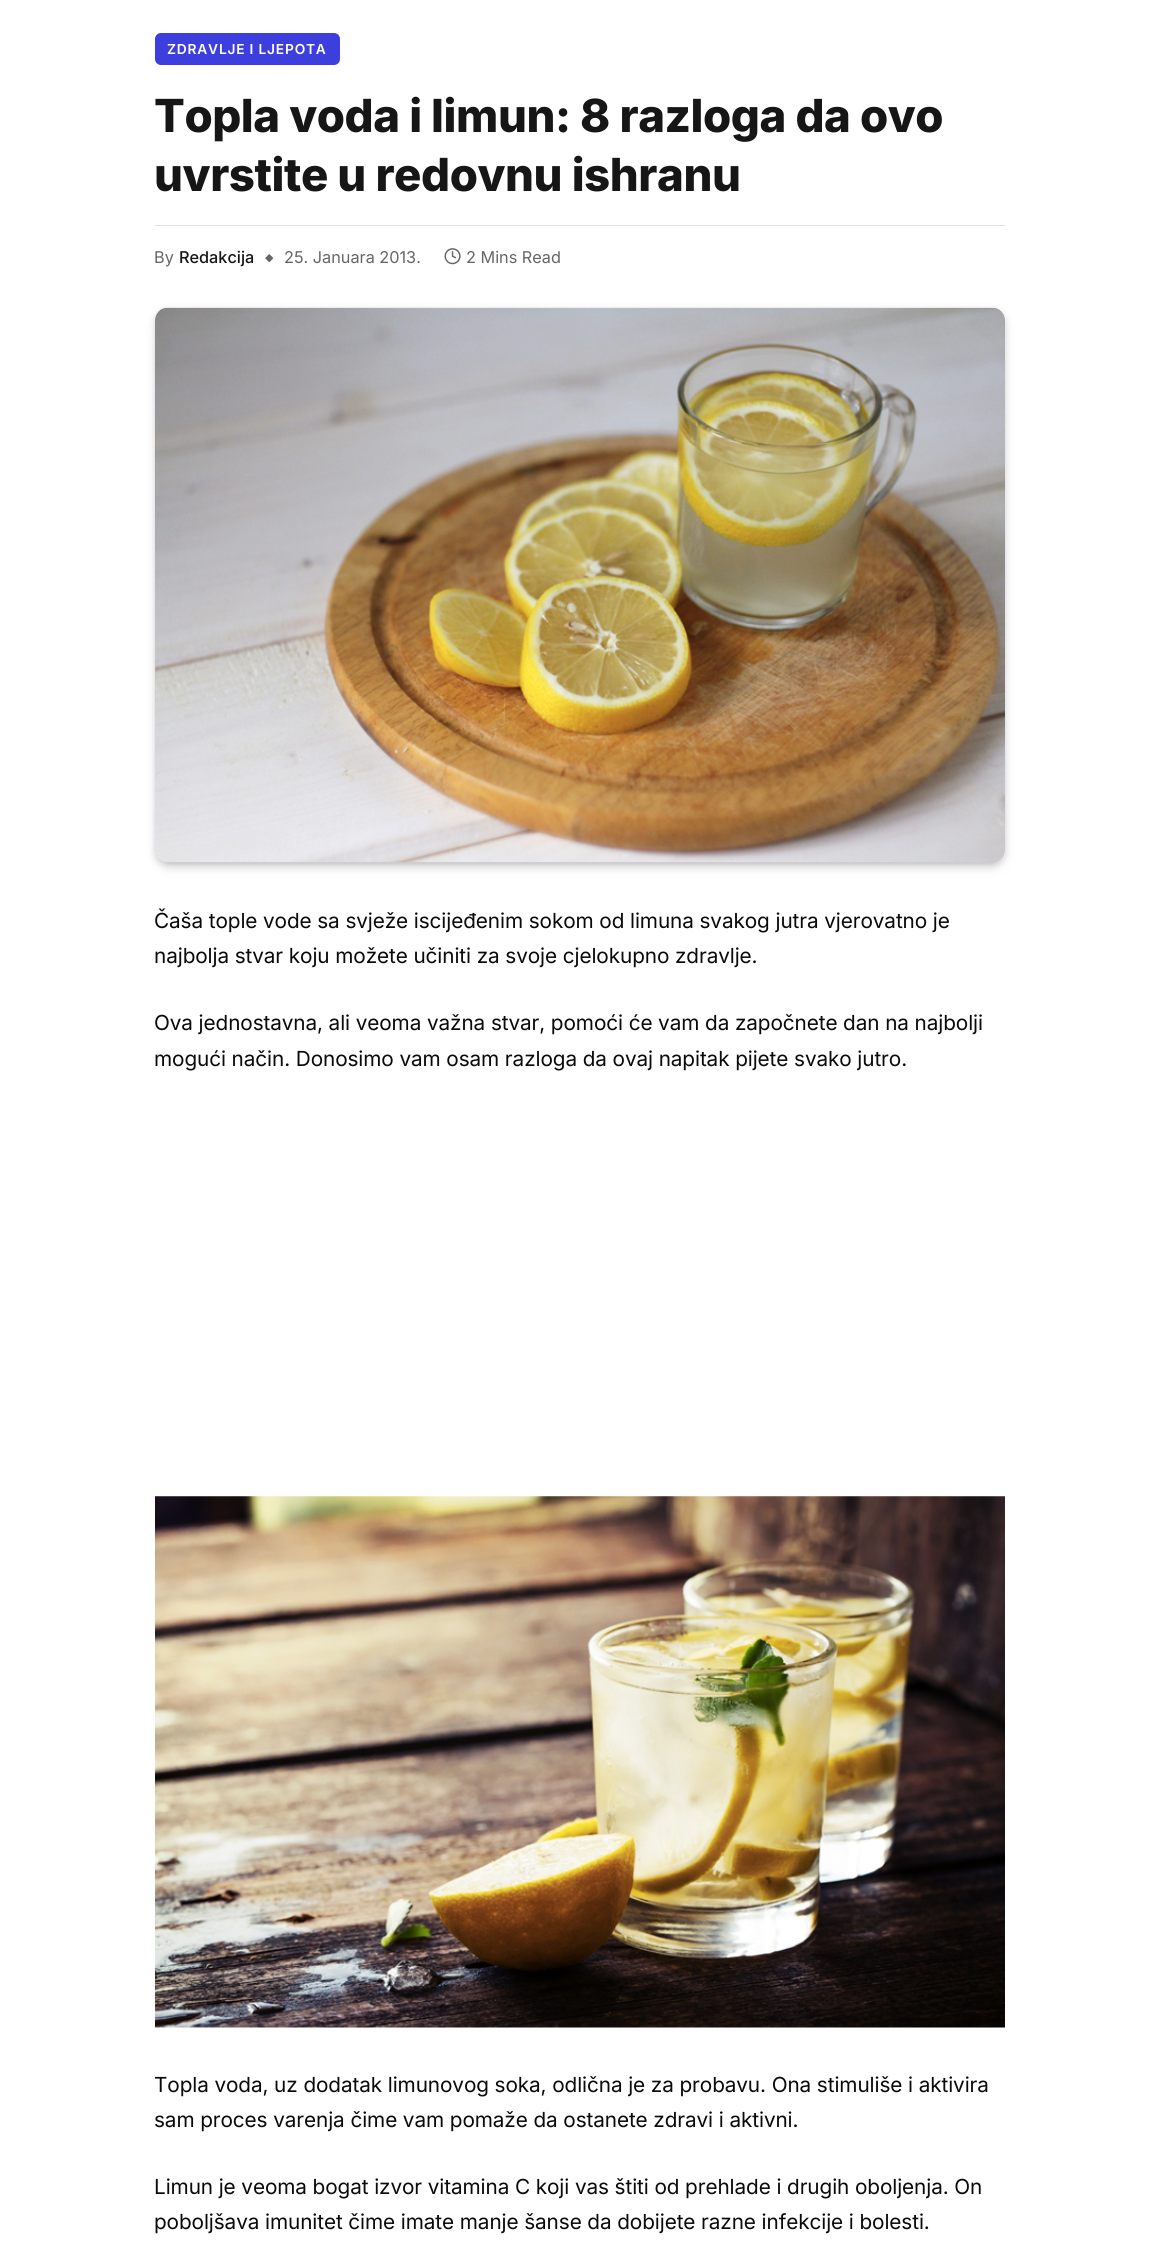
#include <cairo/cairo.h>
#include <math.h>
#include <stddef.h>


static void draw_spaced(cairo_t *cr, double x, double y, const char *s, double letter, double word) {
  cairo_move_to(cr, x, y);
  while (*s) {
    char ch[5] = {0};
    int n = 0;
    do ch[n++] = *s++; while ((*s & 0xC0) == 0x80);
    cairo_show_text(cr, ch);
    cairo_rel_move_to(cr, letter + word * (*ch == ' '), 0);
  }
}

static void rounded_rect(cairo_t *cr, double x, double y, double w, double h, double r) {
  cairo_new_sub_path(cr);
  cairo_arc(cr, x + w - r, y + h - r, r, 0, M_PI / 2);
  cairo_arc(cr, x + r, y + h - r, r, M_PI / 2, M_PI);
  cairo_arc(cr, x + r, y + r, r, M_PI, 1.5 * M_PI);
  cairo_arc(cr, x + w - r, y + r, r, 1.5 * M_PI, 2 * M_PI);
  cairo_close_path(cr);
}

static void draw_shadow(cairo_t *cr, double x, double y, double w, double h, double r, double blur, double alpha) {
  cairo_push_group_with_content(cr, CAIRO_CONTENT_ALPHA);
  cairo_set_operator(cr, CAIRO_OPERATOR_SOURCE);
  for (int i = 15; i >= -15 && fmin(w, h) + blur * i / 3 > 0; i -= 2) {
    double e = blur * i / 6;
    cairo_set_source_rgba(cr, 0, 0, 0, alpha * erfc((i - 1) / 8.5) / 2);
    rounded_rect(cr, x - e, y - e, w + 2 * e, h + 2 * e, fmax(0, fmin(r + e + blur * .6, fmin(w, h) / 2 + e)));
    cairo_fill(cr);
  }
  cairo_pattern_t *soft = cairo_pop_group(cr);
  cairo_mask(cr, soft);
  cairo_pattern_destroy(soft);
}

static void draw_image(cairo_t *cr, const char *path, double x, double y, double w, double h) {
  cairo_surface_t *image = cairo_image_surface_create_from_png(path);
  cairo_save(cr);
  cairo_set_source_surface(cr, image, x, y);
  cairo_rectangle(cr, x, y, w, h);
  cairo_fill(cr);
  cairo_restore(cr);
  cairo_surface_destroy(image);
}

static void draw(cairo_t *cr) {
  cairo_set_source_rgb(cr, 1, 1, 1);
  cairo_paint(cr);
  cairo_set_source_rgb(cr, 60 / 255.0, 63 / 255.0, 222 / 255.0);
  rounded_rect(cr, 155, 33, 185, 32, 6);
  cairo_fill(cr);
  cairo_set_source_rgb(cr, 226 / 255.0, 226 / 255.0, 226 / 255.0);
  cairo_rectangle(cr, 155, 225, 850, 1);
  cairo_fill(cr);
  draw_image(cr, "images/1.png", 444, 248, 17, 17);
  cairo_set_source_rgb(cr, 7 / 255.0, 10 / 255.0, 25 / 255.0);
  draw_shadow(cr, 163, 323, 835, 540, 5, 7.5, 0.2);
  draw_shadow(cr, 156, 311, 848, 553, 11, 4, 0.2);
  draw_image(cr, "images/2.png", 155, 307, 850, 556);
  draw_image(cr, "images/3.png", 155, 1496, 850, 532);
  cairo_select_font_face(cr, "Inter SemiBold", CAIRO_FONT_SLANT_NORMAL, CAIRO_FONT_WEIGHT_NORMAL);
  cairo_set_font_size(cr, 13.75);
  cairo_set_source_rgb(cr, 1, 1, 1);
  draw_spaced(cr, 167, 54, "ZDRAVLJE I LJEPOTA", 0.8, 0);
  cairo_select_font_face(cr, "Inter ExtraBold", CAIRO_FONT_SLANT_NORMAL, CAIRO_FONT_WEIGHT_NORMAL);
  cairo_set_font_size(cr, 45.6);
  cairo_set_source_rgb(cr, 22 / 255.0, 22 / 255.0, 22 / 255.0);
  draw_spaced(cr, 154, 132, "Topla voda i limun: 8 razloga da ovo", -0.45, 0);
  draw_spaced(cr, 154, 191, "uvrstite u redovnu ishranu", -0.45, 0);
  cairo_select_font_face(cr, "Inter", CAIRO_FONT_SLANT_NORMAL, CAIRO_FONT_WEIGHT_NORMAL);
  cairo_set_font_size(cr, 16.25);
  cairo_set_source_rgb(cr, 102 / 255.0, 102 / 255.0, 102 / 255.0);
  cairo_move_to(cr, 154, 263);
  cairo_show_text(cr, "By");
  cairo_select_font_face(cr, "Inter Medium", CAIRO_FONT_SLANT_NORMAL, CAIRO_FONT_WEIGHT_NORMAL);
  cairo_set_source_rgb(cr, 22 / 255.0, 22 / 255.0, 22 / 255.0);
  cairo_move_to(cr, 179, 263);
  cairo_show_text(cr, "Redakcija");
  cairo_select_font_face(cr, "DejaVu Sans", CAIRO_FONT_SLANT_NORMAL, CAIRO_FONT_WEIGHT_NORMAL);
  cairo_set_font_size(cr, 11);
  cairo_set_source_rgb(cr, 102 / 255.0, 102 / 255.0, 102 / 255.0);
  cairo_move_to(cr, 265, 261);
  cairo_show_text(cr, "◆");
  cairo_select_font_face(cr, "Inter", CAIRO_FONT_SLANT_NORMAL, CAIRO_FONT_WEIGHT_NORMAL);
  cairo_set_font_size(cr, 16.25);
  cairo_move_to(cr, 284, 263);
  cairo_show_text(cr, "25. Januara 2013.");
  cairo_move_to(cr, 466, 263);
  cairo_show_text(cr, "2 Mins Read");
  cairo_set_font_size(cr, 20.75);
  cairo_set_source_rgb(cr, 10 / 255.0, 10 / 255.0, 10 / 255.0);
  draw_spaced(cr, 154, 928, "Čaša tople vode sa svježe iscijeđenim sokom od limuna svakog jutra vjerovatno je", -0.1, 0);
  draw_spaced(cr, 154, 963, "najbolja stvar koju možete učiniti za svoje cjelokupno zdravlje.", -0.1, 0);
  draw_spaced(cr, 154, 1030, "Ova jednostavna, ali veoma važna stvar, pomoći će vam da započnete dan na najbolji", -0.1, 0);
  draw_spaced(cr, 154, 1066, "mogući način. Donosimo vam osam razloga da ovaj napitak pijete svako jutro.", -0.1, 0);
  draw_spaced(cr, 154, 2092, "Topla voda, uz dodatak limunovog soka, odlična je za probavu. Ona stimuliše i aktivira", -0.1, 0);
  draw_spaced(cr, 154, 2127, "sam proces varenja čime vam pomaže da ostanete zdravi i aktivni.", -0.1, 0);
  draw_spaced(cr, 154, 2194, "Limun je veoma bogat izvor vitamina C koji vas štiti od prehlade i drugih oboljenja. On", -0.1, 0);
  draw_spaced(cr, 154, 2229, "poboljšava imunitet čime imate manje šanse da dobijete razne infekcije i bolesti.", -0.1, 0);
}

int main(void) {
  cairo_surface_t *surface = cairo_image_surface_create(CAIRO_FORMAT_RGB24, 1158, 2268);
  cairo_t *cr = cairo_create(surface);
  cairo_font_options_t *options = cairo_font_options_create();
  cairo_font_options_set_hint_metrics(options, CAIRO_HINT_METRICS_OFF);
  cairo_font_options_set_hint_style(options, CAIRO_HINT_STYLE_NONE);
  cairo_set_font_options(cr, options);
  cairo_set_miter_limit(cr, 4);
  draw(cr);
  cairo_surface_write_to_png(surface, "out.png");
  cairo_font_options_destroy(options);
  cairo_destroy(cr);
  cairo_surface_destroy(surface);
  return 0;
}
